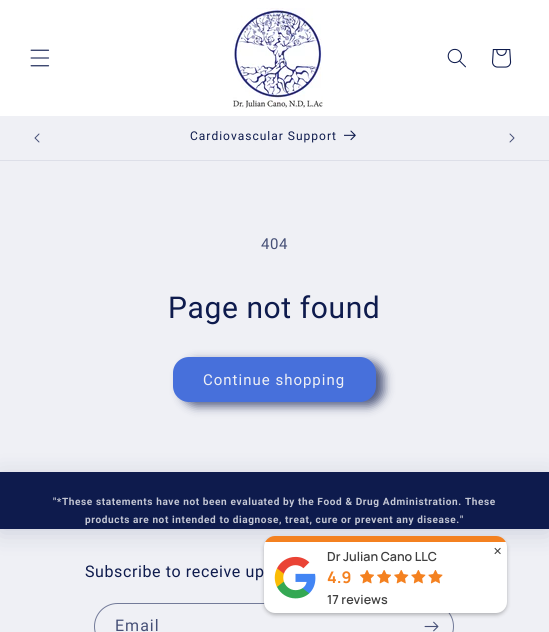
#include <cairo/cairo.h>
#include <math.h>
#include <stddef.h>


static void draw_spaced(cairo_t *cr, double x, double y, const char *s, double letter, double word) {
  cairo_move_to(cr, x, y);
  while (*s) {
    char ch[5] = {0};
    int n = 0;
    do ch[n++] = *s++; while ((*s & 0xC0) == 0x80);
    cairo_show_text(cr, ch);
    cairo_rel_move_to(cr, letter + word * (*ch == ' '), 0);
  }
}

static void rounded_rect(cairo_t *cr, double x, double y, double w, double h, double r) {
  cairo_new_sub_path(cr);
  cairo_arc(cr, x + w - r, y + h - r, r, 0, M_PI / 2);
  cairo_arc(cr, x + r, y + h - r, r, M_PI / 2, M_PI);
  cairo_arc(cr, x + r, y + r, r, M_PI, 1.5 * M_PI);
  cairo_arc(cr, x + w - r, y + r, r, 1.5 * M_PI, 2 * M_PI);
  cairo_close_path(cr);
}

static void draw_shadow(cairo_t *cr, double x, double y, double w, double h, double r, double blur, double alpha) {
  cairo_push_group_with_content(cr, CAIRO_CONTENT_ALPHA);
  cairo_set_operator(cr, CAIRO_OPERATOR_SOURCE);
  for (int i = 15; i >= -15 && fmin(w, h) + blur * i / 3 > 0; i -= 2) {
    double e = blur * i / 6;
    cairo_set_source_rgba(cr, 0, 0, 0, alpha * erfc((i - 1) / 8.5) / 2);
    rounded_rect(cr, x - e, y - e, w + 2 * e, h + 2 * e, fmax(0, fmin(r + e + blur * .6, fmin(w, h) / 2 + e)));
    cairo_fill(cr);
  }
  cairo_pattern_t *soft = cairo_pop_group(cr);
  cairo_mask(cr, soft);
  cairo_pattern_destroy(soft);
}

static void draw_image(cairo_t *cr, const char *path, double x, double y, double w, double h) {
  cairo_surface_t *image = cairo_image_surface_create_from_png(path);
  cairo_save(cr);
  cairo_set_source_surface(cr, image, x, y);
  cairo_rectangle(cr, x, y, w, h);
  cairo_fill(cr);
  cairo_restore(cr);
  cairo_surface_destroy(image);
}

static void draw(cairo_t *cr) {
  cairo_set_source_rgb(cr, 239 / 255.0, 240 / 255.0, 245 / 255.0);
  cairo_paint(cr);
  cairo_set_source_rgb(cr, 1, 1, 1);
  cairo_rectangle(cr, 0, 0, 549, 116);
  cairo_fill(cr);
  draw_image(cr, "images/1.png", 30, 49, 20, 18);
  draw_image(cr, "images/2.png", 233, 8, 90, 100);
  draw_image(cr, "images/3.png", 447, 48, 19, 20);
  draw_image(cr, "images/4.png", 492, 49, 20, 19);
  cairo_set_source_rgb(cr, 221 / 255.0, 223 / 255.0, 232 / 255.0);
  cairo_rectangle(cr, 0, 160, 549, 1);
  cairo_fill(cr);
  draw_image(cr, "images/5.png", 34, 133, 6, 10);
  draw_image(cr, "images/6.png", 344, 130, 12, 11);
  draw_image(cr, "images/7.png", 509, 133, 6, 10);
  cairo_set_source_rgb(cr, 14 / 255.0, 27 / 255.0, 77 / 255.0);
  draw_shadow(cr, 181, 361, 203, 45, 16, 5, 0.7);
  cairo_set_source_rgb(cr, 71 / 255.0, 112 / 255.0, 219 / 255.0);
  rounded_rect(cr, 173, 357, 203, 45, 16);
  cairo_fill(cr);
  cairo_set_source_rgb(cr, 14 / 255.0, 27 / 255.0, 77 / 255.0);
  cairo_rectangle(cr, 0, 472, 549, 57);
  cairo_fill(cr);
  cairo_save(cr);
  cairo_set_fill_rule(cr, CAIRO_FILL_RULE_EVEN_ODD);
  cairo_new_path(cr);
  cairo_move_to(cr, 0, 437);
  cairo_line_to(cr, 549, 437);
  cairo_line_to(cr, 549, 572);
  cairo_line_to(cr, 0, 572);
  cairo_close_path(cr);
  cairo_move_to(cr, 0, 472);
  cairo_line_to(cr, 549, 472);
  cairo_line_to(cr, 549, 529);
  cairo_line_to(cr, 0, 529);
  cairo_close_path(cr);
  cairo_clip(cr);
  cairo_set_source_rgb(cr, 14 / 255.0, 27 / 255.0, 77 / 255.0);
  draw_shadow(cr, 0, 476, 549, 57, 0, 12.5, 0.15);
  cairo_restore(cr);
  rounded_rect(cr, 94.5, 603.5, 359, 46, 23);
  cairo_set_source_rgb(cr, 115 / 255.0, 123 / 255.0, 153 / 255.0);
  cairo_set_line_width(cr, 1);
  cairo_stroke(cr);
  draw_image(cr, "images/8.png", 424, 621, 15, 11);
  cairo_set_source_rgb(cr, 0, 0, 0);
  draw_shadow(cr, 264, 538, 243, 77, 11, 2, 0.26);
  cairo_save(cr);
  rounded_rect(cr, 264, 536, 243, 77, 11);
  cairo_clip(cr);
  cairo_set_source_rgb(cr, 244 / 255.0, 129 / 255.0, 32 / 255.0);
  cairo_rectangle(cr, 264, 536, 243, 6);
  cairo_fill(cr);
  cairo_set_source_rgb(cr, 1, 1, 1);
  cairo_new_path(cr);
  cairo_move_to(cr, 264, 542);
  cairo_line_to(cr, 507, 542);
  cairo_line_to(cr, 507, 602);
  cairo_curve_to(cr, 507, 608, 502, 613, 496, 613);
  cairo_line_to(cr, 275, 613);
  cairo_curve_to(cr, 269, 613, 264, 608, 264, 602);
  cairo_close_path(cr);
  cairo_fill(cr);
  cairo_restore(cr);
  draw_image(cr, "images/9.png", 274, 556, 42, 43);
  draw_image(cr, "images/10.png", 360, 570, 14, 14);
  draw_image(cr, "images/11.png", 377, 570, 14, 14);
  draw_image(cr, "images/12.png", 394, 570, 15, 14);
  draw_image(cr, "images/13.png", 411, 570, 15, 14);
  draw_image(cr, "images/14.png", 428, 570, 15, 14);
  cairo_select_font_face(cr, "Roboto", CAIRO_FONT_SLANT_NORMAL, CAIRO_FONT_WEIGHT_NORMAL);
  cairo_set_font_size(cr, 12);
  cairo_set_source_rgb(cr, 14 / 255.0, 27 / 255.0, 77 / 255.0);
  draw_spaced(cr, 190, 140, "Cardiovascular Support", 1, 0);
  cairo_set_font_size(cr, 15);
  cairo_set_source_rgb(cr, 70 / 255.0, 80 / 255.0, 119 / 255.0);
  draw_spaced(cr, 261, 249, "404", 0.6, 0);
  cairo_set_font_size(cr, 30);
  cairo_set_source_rgb(cr, 14 / 255.0, 27 / 255.0, 77 / 255.0);
  draw_spaced(cr, 168, 318, "Page not found", 0.6, 0);
  cairo_set_font_size(cr, 15);
  cairo_set_source_rgb(cr, 239 / 255.0, 240 / 255.0, 245 / 255.0);
  draw_spaced(cr, 203, 385, "Continue shopping", 1, 0);
  cairo_select_font_face(cr, "Roboto", CAIRO_FONT_SLANT_NORMAL, CAIRO_FONT_WEIGHT_BOLD);
  cairo_set_font_size(cr, 10.05);
  cairo_set_source_rgb(cr, 195 / 255.0, 198 / 255.0, 211 / 255.0);
  draw_spaced(cr, 53, 505, "\"*These statements have not been evaluated by the Food & Drug Administration. These", 0.6, 0);
  draw_spaced(cr, 85, 523, "products are not intended to diagnose, treat, cure or prevent any disease.\"", 0.6, 0);
  cairo_select_font_face(cr, "Roboto", CAIRO_FONT_SLANT_NORMAL, CAIRO_FONT_WEIGHT_NORMAL);
  cairo_set_font_size(cr, 16);
  cairo_set_source_rgb(cr, 14 / 255.0, 27 / 255.0, 77 / 255.0);
  draw_spaced(cr, 85, 577, "Subscribe to receive up", 0.6, 0);
  cairo_set_source_rgb(cr, 70 / 255.0, 80 / 255.0, 119 / 255.0);
  draw_spaced(cr, 115, 631, "Email", 1, 0);
  cairo_select_font_face(cr, "Manrope SemiBold", CAIRO_FONT_SLANT_NORMAL, CAIRO_FONT_WEIGHT_NORMAL);
  cairo_set_font_size(cr, 12.5);
  cairo_set_source_rgb(cr, 64 / 255.0, 64 / 255.0, 64 / 255.0);
  cairo_move_to(cr, 327, 561);
  cairo_show_text(cr, "Dr Julian Cano LLC");
  cairo_select_font_face(cr, "Manrope", CAIRO_FONT_SLANT_NORMAL, CAIRO_FONT_WEIGHT_BOLD);
  cairo_set_font_size(cr, 16);
  cairo_set_source_rgb(cr, 244 / 255.0, 129 / 255.0, 32 / 255.0);
  cairo_move_to(cr, 327, 583);
  cairo_show_text(cr, "4.9");
  cairo_select_font_face(cr, "Manrope SemiBold", CAIRO_FONT_SLANT_NORMAL, CAIRO_FONT_WEIGHT_NORMAL);
  cairo_set_font_size(cr, 12.5);
  cairo_set_source_rgb(cr, 64 / 255.0, 64 / 255.0, 64 / 255.0);
  cairo_move_to(cr, 327, 604);
  cairo_show_text(cr, "17 reviews");
  cairo_select_font_face(cr, "DejaVu Sans", CAIRO_FONT_SLANT_NORMAL, CAIRO_FONT_WEIGHT_NORMAL);
  cairo_set_font_size(cr, 11);
  cairo_move_to(cr, 493, 555);
  cairo_show_text(cr, "✕");
}

int main(void) {
  cairo_surface_t *surface = cairo_image_surface_create(CAIRO_FORMAT_RGB24, 549, 632);
  cairo_t *cr = cairo_create(surface);
  cairo_font_options_t *options = cairo_font_options_create();
  cairo_font_options_set_hint_metrics(options, CAIRO_HINT_METRICS_OFF);
  cairo_font_options_set_hint_style(options, CAIRO_HINT_STYLE_NONE);
  cairo_set_font_options(cr, options);
  cairo_set_miter_limit(cr, 4);
  draw(cr);
  cairo_surface_write_to_png(surface, "out.png");
  cairo_font_options_destroy(options);
  cairo_destroy(cr);
  cairo_surface_destroy(surface);
  return 0;
}
